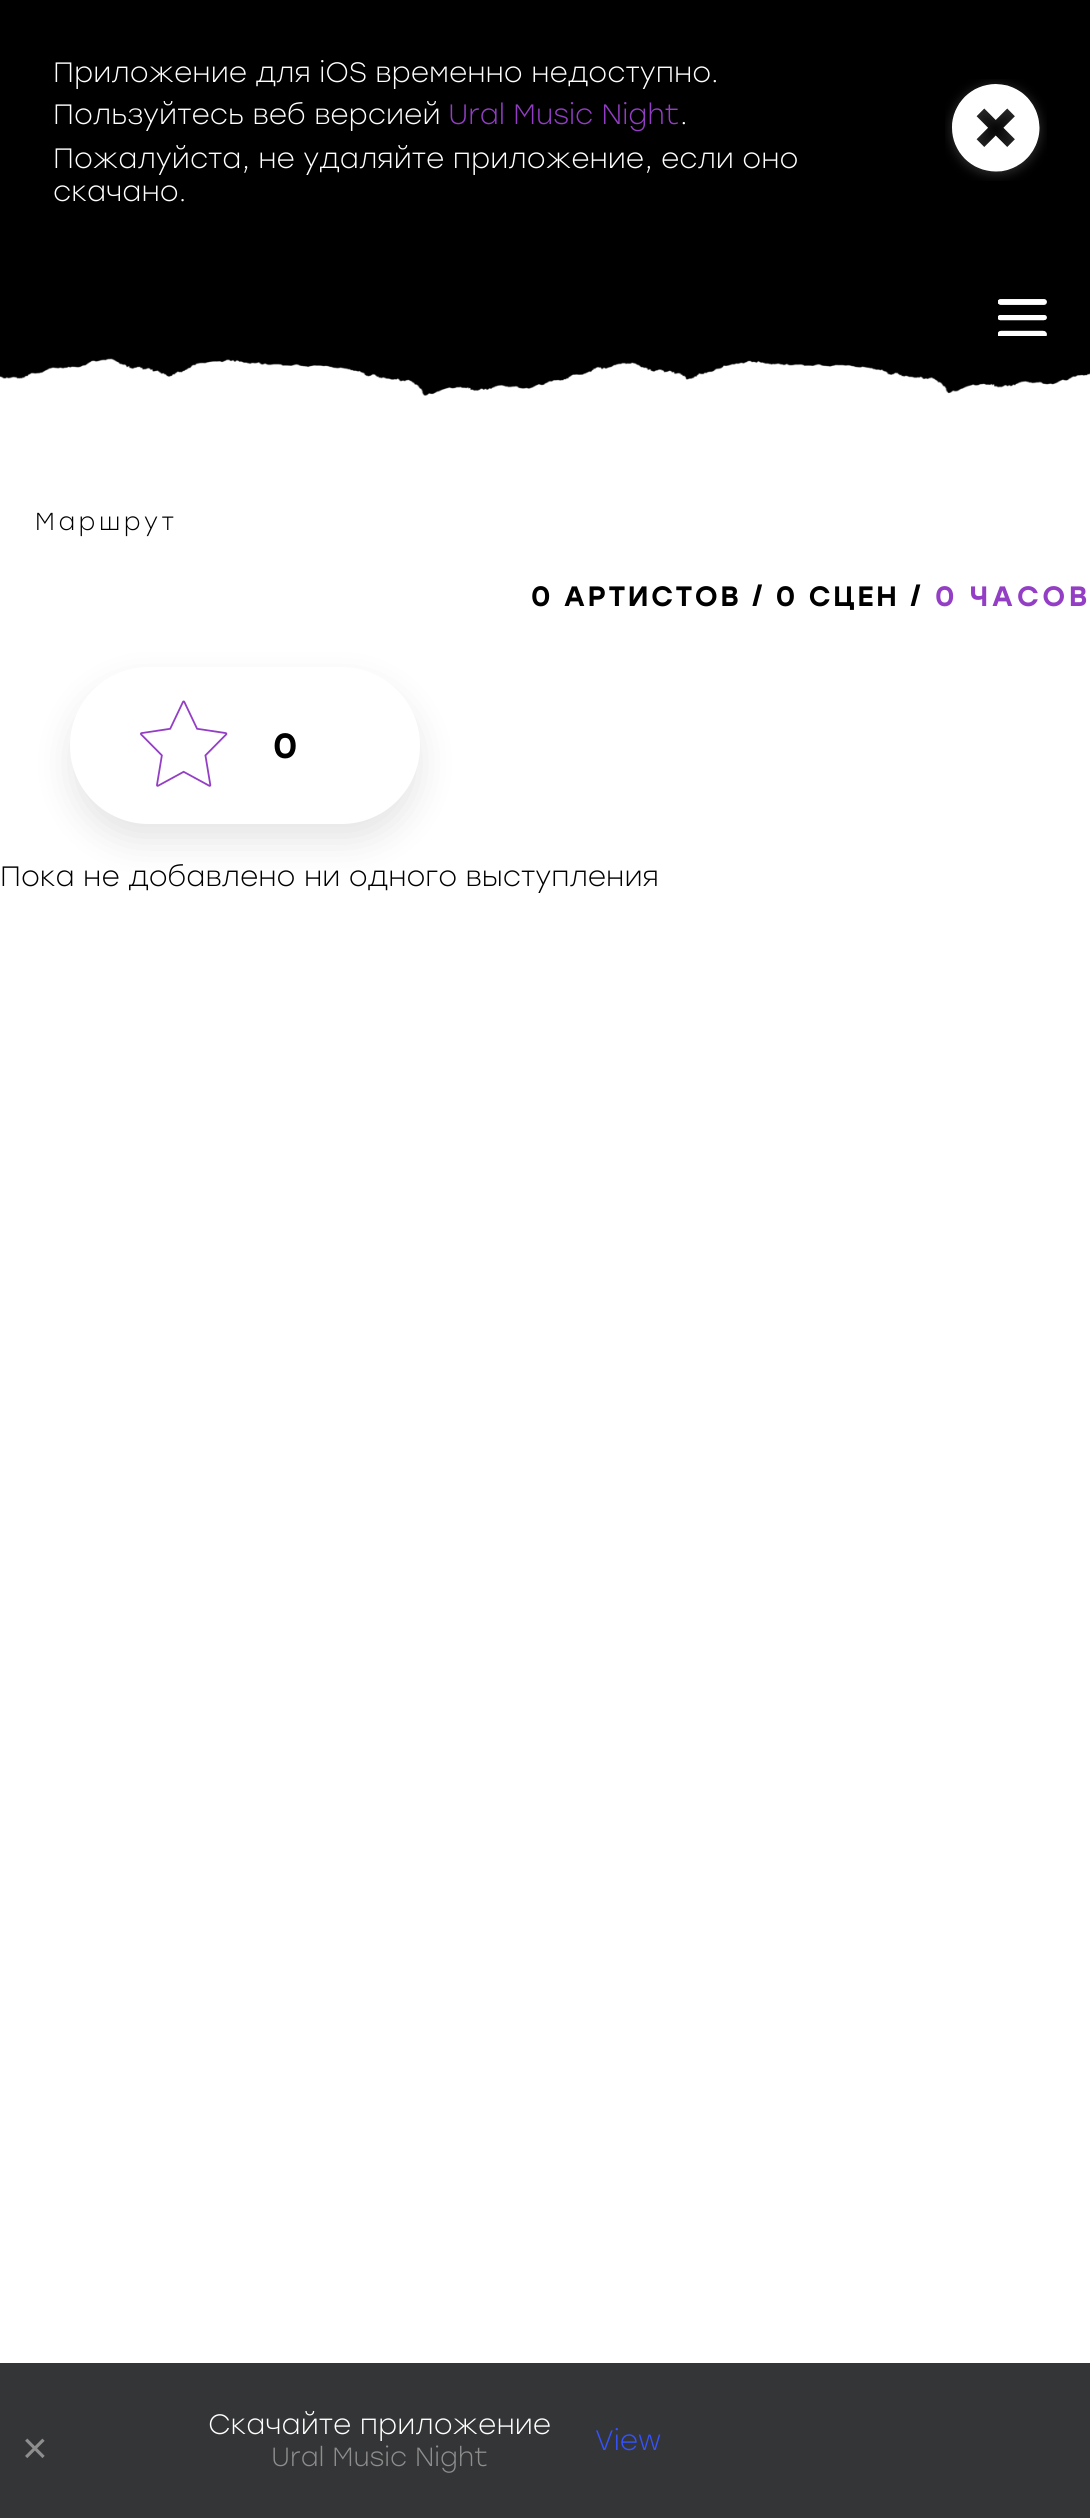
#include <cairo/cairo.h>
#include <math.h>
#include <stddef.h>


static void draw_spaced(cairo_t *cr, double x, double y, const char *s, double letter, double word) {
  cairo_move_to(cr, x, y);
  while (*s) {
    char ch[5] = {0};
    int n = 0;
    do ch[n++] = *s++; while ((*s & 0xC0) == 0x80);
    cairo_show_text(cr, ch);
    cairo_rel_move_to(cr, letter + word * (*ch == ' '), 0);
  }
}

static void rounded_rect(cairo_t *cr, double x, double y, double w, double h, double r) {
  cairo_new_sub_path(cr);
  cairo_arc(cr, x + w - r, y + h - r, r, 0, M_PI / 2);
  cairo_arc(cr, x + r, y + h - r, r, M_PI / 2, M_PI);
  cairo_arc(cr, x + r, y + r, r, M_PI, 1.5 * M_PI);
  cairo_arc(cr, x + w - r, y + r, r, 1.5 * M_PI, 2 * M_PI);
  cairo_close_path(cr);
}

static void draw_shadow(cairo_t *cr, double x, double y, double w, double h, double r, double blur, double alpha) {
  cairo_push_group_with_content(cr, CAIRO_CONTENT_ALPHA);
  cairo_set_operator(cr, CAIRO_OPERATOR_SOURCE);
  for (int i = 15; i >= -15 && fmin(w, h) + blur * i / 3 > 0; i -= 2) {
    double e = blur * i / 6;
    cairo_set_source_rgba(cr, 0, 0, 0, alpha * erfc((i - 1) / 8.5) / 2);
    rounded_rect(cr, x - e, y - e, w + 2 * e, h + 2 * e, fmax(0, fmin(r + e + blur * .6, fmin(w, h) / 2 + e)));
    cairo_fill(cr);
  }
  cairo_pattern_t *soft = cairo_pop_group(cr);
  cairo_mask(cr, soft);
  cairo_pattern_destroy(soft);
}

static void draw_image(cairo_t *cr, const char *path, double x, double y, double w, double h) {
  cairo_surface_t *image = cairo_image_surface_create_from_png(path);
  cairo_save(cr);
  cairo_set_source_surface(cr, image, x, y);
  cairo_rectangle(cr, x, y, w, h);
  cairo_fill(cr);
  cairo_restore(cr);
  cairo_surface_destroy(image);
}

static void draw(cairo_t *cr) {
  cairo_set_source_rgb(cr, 0, 0, 0);
  cairo_paint(cr);
  draw_image(cr, "images/1.png", 945, 79, 102, 102);
  cairo_set_source_rgb(cr, 1, 1, 1);
  cairo_rectangle(cr, 0, 358, 1090, 2005);
  cairo_fill(cr);
  draw_image(cr, "images/2.png", 0, 352, 1090, 44);
  draw_image(cr, "images/3.png", 998, 299, 49, 37);
  cairo_set_source_rgb(cr, 0, 0, 0);
  draw_shadow(cr, 70, 684, 350, 158, 79, 17.5, 0.1);
  cairo_set_source_rgb(cr, 1, 1, 1);
  rounded_rect(cr, 70, 667, 350, 157, 78.5);
  cairo_fill(cr);
  draw_image(cr, "images/4.png", 140, 700, 88, 87);
  cairo_set_source_rgb(cr, 52 / 255.0, 53 / 255.0, 54 / 255.0);
  cairo_rectangle(cr, 0, 2363, 1090, 155);
  cairo_fill(cr);
  cairo_select_font_face(cr, "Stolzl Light", CAIRO_FONT_SLANT_NORMAL, CAIRO_FONT_WEIGHT_NORMAL);
  cairo_set_font_size(cr, 28);
  cairo_set_source_rgb(cr, 1, 1, 1);
  cairo_move_to(cr, 53, 82);
  cairo_show_text(cr, "Приложение для iOS временно недоступно.");
  cairo_move_to(cr, 53, 124);
  cairo_show_text(cr, "Пользуйтесь веб версией");
  cairo_set_source_rgb(cr, 147 / 255.0, 62 / 255.0, 197 / 255.0);
  cairo_move_to(cr, 448, 124);
  cairo_show_text(cr, "Ural Music Night");
  cairo_set_source_rgb(cr, 1, 1, 1);
  cairo_move_to(cr, 680, 124);
  cairo_show_text(cr, ".");
  cairo_move_to(cr, 53, 168);
  cairo_show_text(cr, "Пожалуйста, не удаляйте приложение, если оно");
  cairo_move_to(cr, 53, 201);
  cairo_show_text(cr, "скачано.");
  cairo_set_font_size(cr, 24.5);
  cairo_set_source_rgb(cr, 0, 0, 0);
  draw_spaced(cr, 35, 530, "Маршрут", 3.5, 0);
  cairo_select_font_face(cr, "Stolzl Medium", CAIRO_FONT_SLANT_NORMAL, CAIRO_FONT_WEIGHT_NORMAL);
  cairo_set_font_size(cr, 28);
  draw_spaced(cr, 531, 606, "0 АРТИСТОВ / 0 СЦЕН /", 2.45, 0);
  cairo_set_source_rgb(cr, 147 / 255.0, 62 / 255.0, 197 / 255.0);
  draw_spaced(cr, 935, 606, "0 ЧАСОВ", 3.5, 0);
  cairo_set_font_size(cr, 35);
  cairo_set_source_rgb(cr, 0, 0, 0);
  draw_spaced(cr, 273, 758, "0", 3.5, 0);
  cairo_select_font_face(cr, "Stolzl Light", CAIRO_FONT_SLANT_NORMAL, CAIRO_FONT_WEIGHT_NORMAL);
  cairo_set_font_size(cr, 28);
  cairo_move_to(cr, 0, 886);
  cairo_show_text(cr, "Пока не добавлено ни одного выступления");
  cairo_select_font_face(cr, "Liberation Sans", CAIRO_FONT_SLANT_NORMAL, CAIRO_FONT_WEIGHT_NORMAL);
  cairo_set_font_size(cr, 44);
  cairo_set_source_rgb(cr, 142 / 255.0, 142 / 255.0, 142 / 255.0);
  cairo_move_to(cr, 22, 2463);
  cairo_show_text(cr, "×");
  cairo_select_font_face(cr, "Stolzl Light", CAIRO_FONT_SLANT_NORMAL, CAIRO_FONT_WEIGHT_NORMAL);
  cairo_set_font_size(cr, 28);
  cairo_set_source_rgb(cr, 1, 1, 1);
  cairo_move_to(cr, 208, 2434);
  cairo_show_text(cr, "Скачайте приложение");
  cairo_set_font_size(cr, 26.25);
  cairo_set_source_rgb(cr, 142 / 255.0, 142 / 255.0, 142 / 255.0);
  cairo_move_to(cr, 271, 2466);
  cairo_show_text(cr, "Ural Music Night");
  cairo_set_font_size(cr, 28);
  cairo_set_source_rgb(cr, 52 / 255.0, 82 / 255.0, 1);
  cairo_move_to(cr, 595, 2450);
  cairo_show_text(cr, "View");
}

int main(void) {
  cairo_surface_t *surface = cairo_image_surface_create(CAIRO_FORMAT_RGB24, 1090, 2518);
  cairo_t *cr = cairo_create(surface);
  cairo_font_options_t *options = cairo_font_options_create();
  cairo_font_options_set_hint_metrics(options, CAIRO_HINT_METRICS_OFF);
  cairo_font_options_set_hint_style(options, CAIRO_HINT_STYLE_NONE);
  cairo_set_font_options(cr, options);
  cairo_set_miter_limit(cr, 4);
  draw(cr);
  cairo_surface_write_to_png(surface, "out.png");
  cairo_font_options_destroy(options);
  cairo_destroy(cr);
  cairo_surface_destroy(surface);
  return 0;
}
